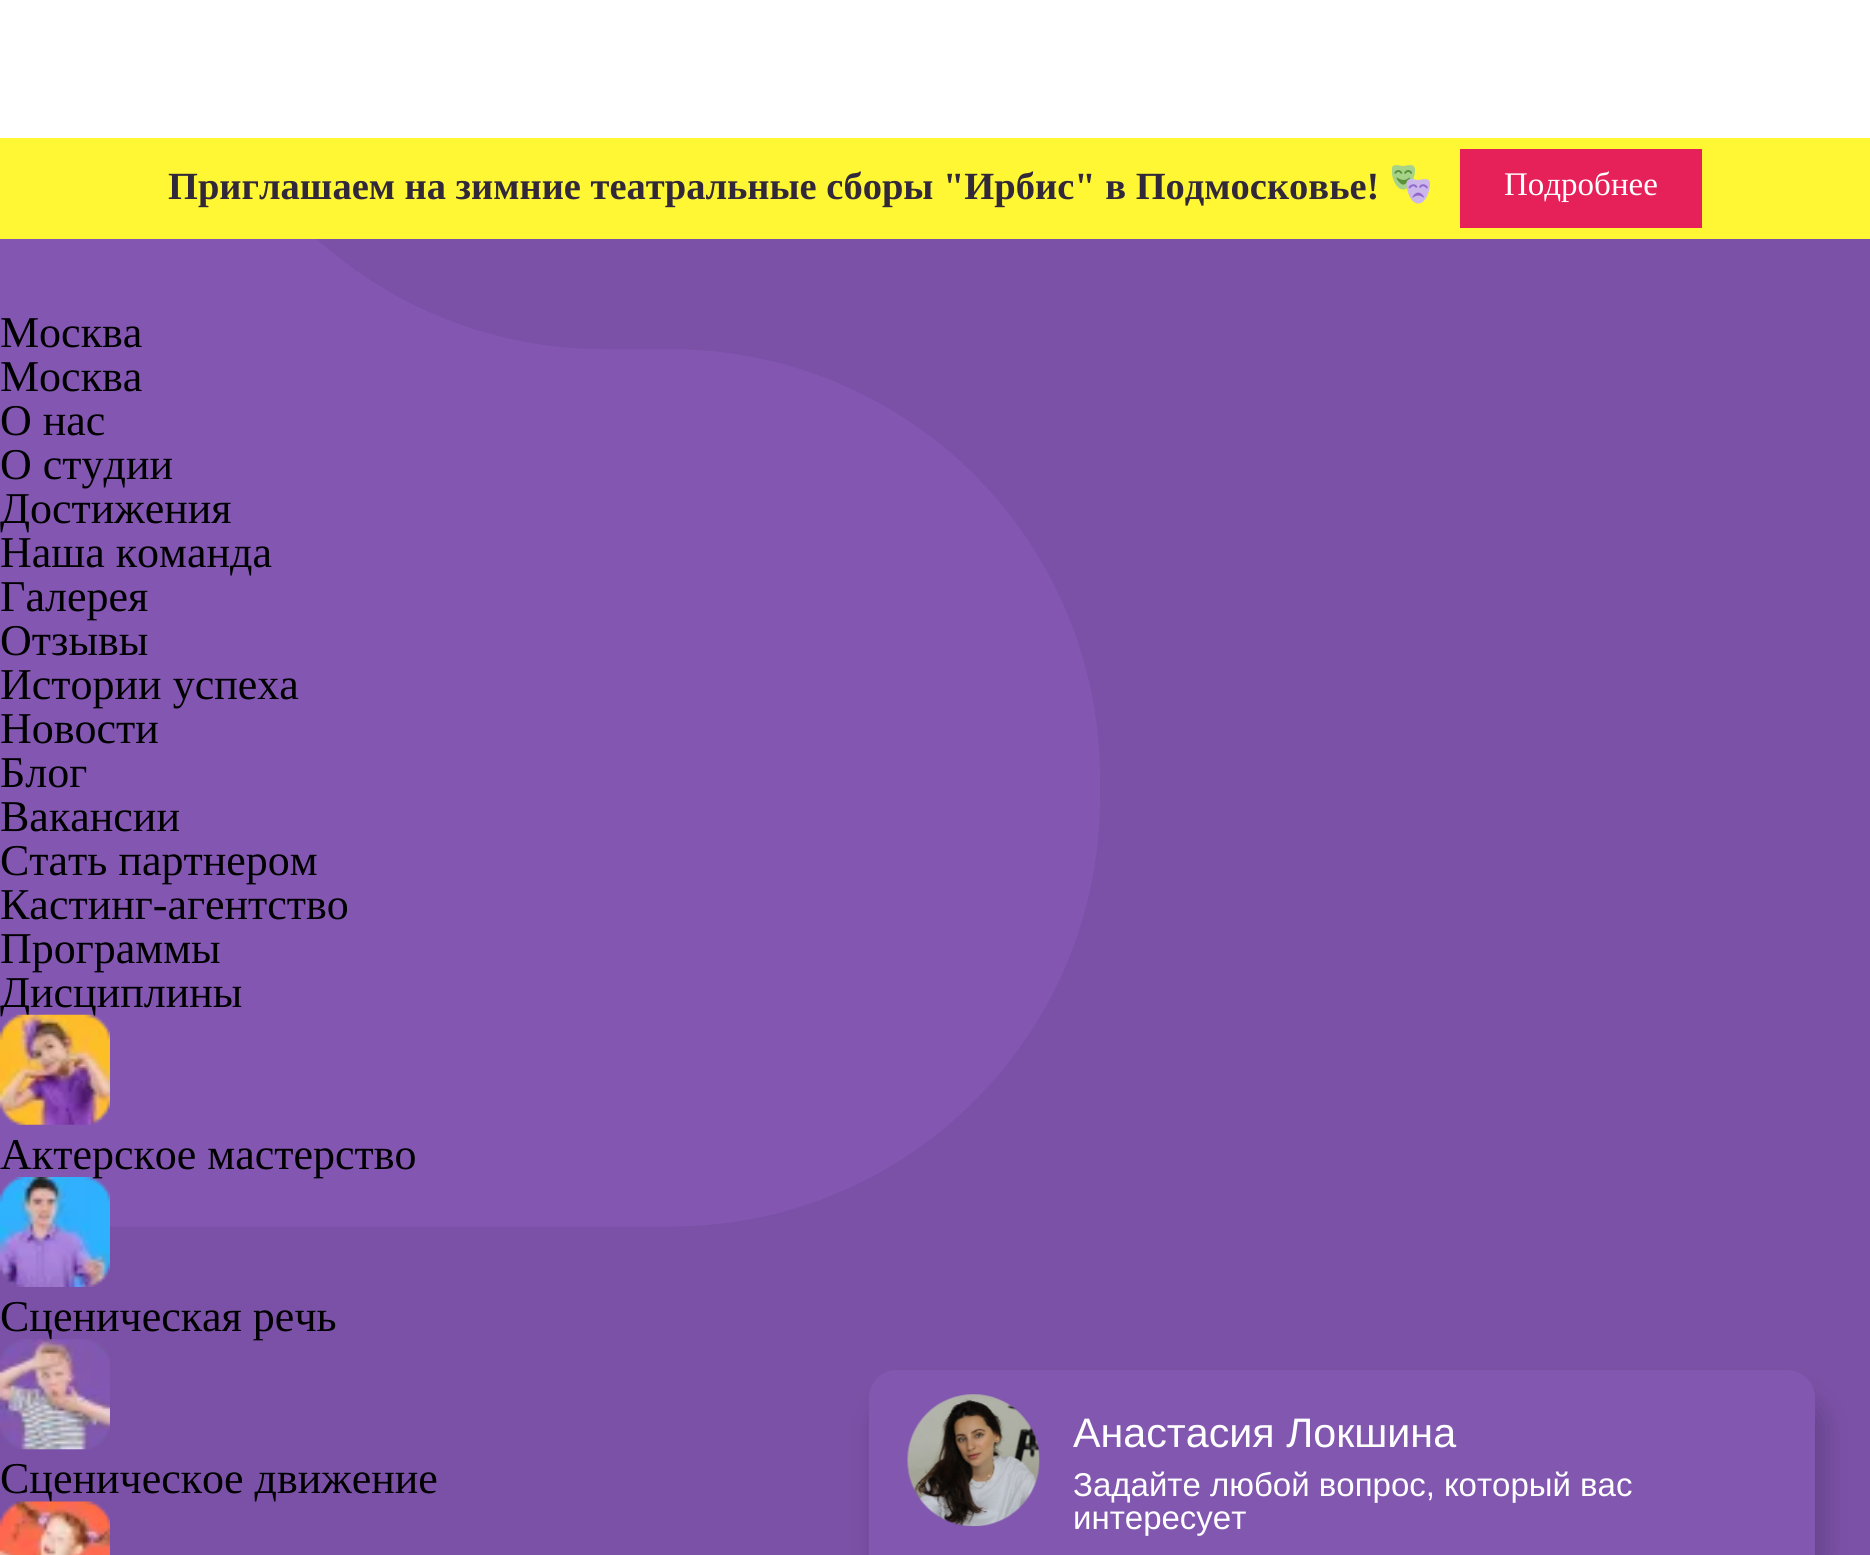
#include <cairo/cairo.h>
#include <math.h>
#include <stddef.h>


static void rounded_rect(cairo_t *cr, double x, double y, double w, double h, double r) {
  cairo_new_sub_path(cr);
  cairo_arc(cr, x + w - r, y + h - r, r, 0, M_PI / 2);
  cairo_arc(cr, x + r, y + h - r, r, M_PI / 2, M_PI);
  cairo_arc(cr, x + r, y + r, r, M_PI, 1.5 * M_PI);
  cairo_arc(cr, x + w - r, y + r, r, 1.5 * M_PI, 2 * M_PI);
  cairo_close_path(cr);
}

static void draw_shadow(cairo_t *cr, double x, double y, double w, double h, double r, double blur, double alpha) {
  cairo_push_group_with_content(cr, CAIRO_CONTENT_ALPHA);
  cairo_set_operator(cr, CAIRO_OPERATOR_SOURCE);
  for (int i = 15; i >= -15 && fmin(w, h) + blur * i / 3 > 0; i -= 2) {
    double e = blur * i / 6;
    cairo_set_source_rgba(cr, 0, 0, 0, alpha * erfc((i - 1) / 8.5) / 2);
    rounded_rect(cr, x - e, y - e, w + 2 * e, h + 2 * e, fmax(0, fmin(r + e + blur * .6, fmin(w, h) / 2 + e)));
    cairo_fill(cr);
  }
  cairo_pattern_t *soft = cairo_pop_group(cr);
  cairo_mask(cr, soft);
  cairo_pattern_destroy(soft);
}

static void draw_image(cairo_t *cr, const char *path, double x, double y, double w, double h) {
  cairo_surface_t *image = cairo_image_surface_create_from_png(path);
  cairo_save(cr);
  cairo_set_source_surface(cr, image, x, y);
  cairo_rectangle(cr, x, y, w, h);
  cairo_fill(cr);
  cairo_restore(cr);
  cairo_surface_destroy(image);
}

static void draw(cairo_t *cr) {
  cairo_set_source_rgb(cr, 1, 1, 1);
  cairo_paint(cr);
  cairo_set_source_rgb(cr, 123 / 255.0, 81 / 255.0, 167 / 255.0);
  cairo_rectangle(cr, 0, 239, 1870, 1316);
  cairo_fill(cr);
  draw_image(cr, "images/1.png", 0, 239, 1100, 988);
  cairo_set_source_rgb(cr, 1, 247 / 255.0, 52 / 255.0);
  cairo_rectangle(cr, 0, 138, 1870, 101);
  cairo_fill(cr);
  draw_image(cr, "images/2.png", 1392, 165, 38, 39);
  cairo_set_source_rgb(cr, 230 / 255.0, 33 / 255.0, 89 / 255.0);
  cairo_rectangle(cr, 1460, 149, 242, 79);
  cairo_fill(cr);
  cairo_set_source_rgb(cr, 0, 0, 0);
  draw_shadow(cr, 877, 1397, 946, 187, 28, 14, 0.2);
  cairo_set_source_rgb(cr, 130 / 255.0, 87 / 255.0, 176 / 255.0);
  cairo_new_path(cr);
  cairo_move_to(cr, 897, 1370);
  cairo_line_to(cr, 1787, 1370);
  cairo_curve_to(cr, 1802.5, 1370, 1815, 1382.5, 1815, 1398);
  cairo_line_to(cr, 1815, 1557);
  cairo_line_to(cr, 869, 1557);
  cairo_line_to(cr, 869, 1398);
  cairo_curve_to(cr, 869, 1382.5, 881.5, 1370, 897, 1370);
  cairo_close_path(cr);
  cairo_fill(cr);
  draw_image(cr, "images/7.png", 907, 1394, 133, 133);
  cairo_select_font_face(cr, "Liberation Serif", CAIRO_FONT_SLANT_NORMAL, CAIRO_FONT_WEIGHT_BOLD);
  cairo_set_font_size(cr, 38.5);
  cairo_set_source_rgb(cr, 49 / 255.0, 41 / 255.0, 58 / 255.0);
  cairo_move_to(cr, 168, 199);
  cairo_show_text(cr, "Приглашаем на зимние театральные сборы \"Ирбис\" в Подмосковье!");
  cairo_select_font_face(cr, "Liberation Serif", CAIRO_FONT_SLANT_NORMAL, CAIRO_FONT_WEIGHT_NORMAL);
  cairo_set_font_size(cr, 33);
  cairo_set_source_rgb(cr, 1, 1, 1);
  cairo_move_to(cr, 1504, 195);
  cairo_show_text(cr, "Подробнее");
  cairo_set_font_size(cr, 44);
  cairo_set_source_rgb(cr, 0, 0, 0);
  cairo_move_to(cr, 0, 347);
  cairo_show_text(cr, "Москва");
  cairo_move_to(cr, 0, 391);
  cairo_show_text(cr, "Москва");
  cairo_move_to(cr, 0, 435);
  cairo_show_text(cr, "О нас");
  cairo_move_to(cr, 0, 479);
  cairo_show_text(cr, "О студии");
  cairo_move_to(cr, 0, 523);
  cairo_show_text(cr, "Достижения");
  cairo_move_to(cr, 0, 567);
  cairo_show_text(cr, "Наша команда");
  cairo_move_to(cr, 0, 611);
  cairo_show_text(cr, "Галерея");
  cairo_move_to(cr, 0, 655);
  cairo_show_text(cr, "Отзывы");
  cairo_move_to(cr, 0, 699);
  cairo_show_text(cr, "Истории успеха");
  cairo_move_to(cr, 0, 743);
  cairo_show_text(cr, "Новости");
  cairo_move_to(cr, 0, 787);
  cairo_show_text(cr, "Блог");
  cairo_move_to(cr, 0, 831);
  cairo_show_text(cr, "Вакансии");
  cairo_move_to(cr, 0, 875);
  cairo_show_text(cr, "Стать партнером");
  cairo_move_to(cr, 0, 919);
  cairo_show_text(cr, "Кастинг-агентство");
  cairo_move_to(cr, 0, 963);
  cairo_show_text(cr, "Программы");
  cairo_move_to(cr, 0, 1007);
  cairo_show_text(cr, "Дисциплины");
  draw_image(cr, "images/3.png", 0, 1014, 110, 111);
  cairo_move_to(cr, 0, 1169);
  cairo_show_text(cr, "Актерское мастерство");
  draw_image(cr, "images/4.png", 0, 1177, 110, 110);
  cairo_move_to(cr, 0, 1331);
  cairo_show_text(cr, "Сценическая речь");
  draw_image(cr, "images/5.png", 0, 1339, 110, 111);
  cairo_move_to(cr, 0, 1493);
  cairo_show_text(cr, "Сценическое движение");
  draw_image(cr, "images/6.png", 0, 1501, 110, 54);
  cairo_select_font_face(cr, "Liberation Sans", CAIRO_FONT_SLANT_NORMAL, CAIRO_FONT_WEIGHT_NORMAL);
  cairo_set_font_size(cr, 41.25);
  cairo_set_source_rgb(cr, 1, 1, 1);
  cairo_move_to(cr, 1073, 1447);
  cairo_show_text(cr, "Анастасия Локшина");
  cairo_set_font_size(cr, 33);
  cairo_move_to(cr, 1073, 1496);
  cairo_show_text(cr, "Задайте любой вопрос, который вас");
  cairo_move_to(cr, 1073, 1529);
  cairo_show_text(cr, "интересует");
}

int main(void) {
  cairo_surface_t *surface = cairo_image_surface_create(CAIRO_FORMAT_RGB24, 1870, 1555);
  cairo_t *cr = cairo_create(surface);
  cairo_font_options_t *options = cairo_font_options_create();
  cairo_font_options_set_hint_metrics(options, CAIRO_HINT_METRICS_OFF);
  cairo_font_options_set_hint_style(options, CAIRO_HINT_STYLE_NONE);
  cairo_set_font_options(cr, options);
  cairo_set_miter_limit(cr, 4);
  draw(cr);
  cairo_surface_write_to_png(surface, "out.png");
  cairo_font_options_destroy(options);
  cairo_destroy(cr);
  cairo_surface_destroy(surface);
  return 0;
}
